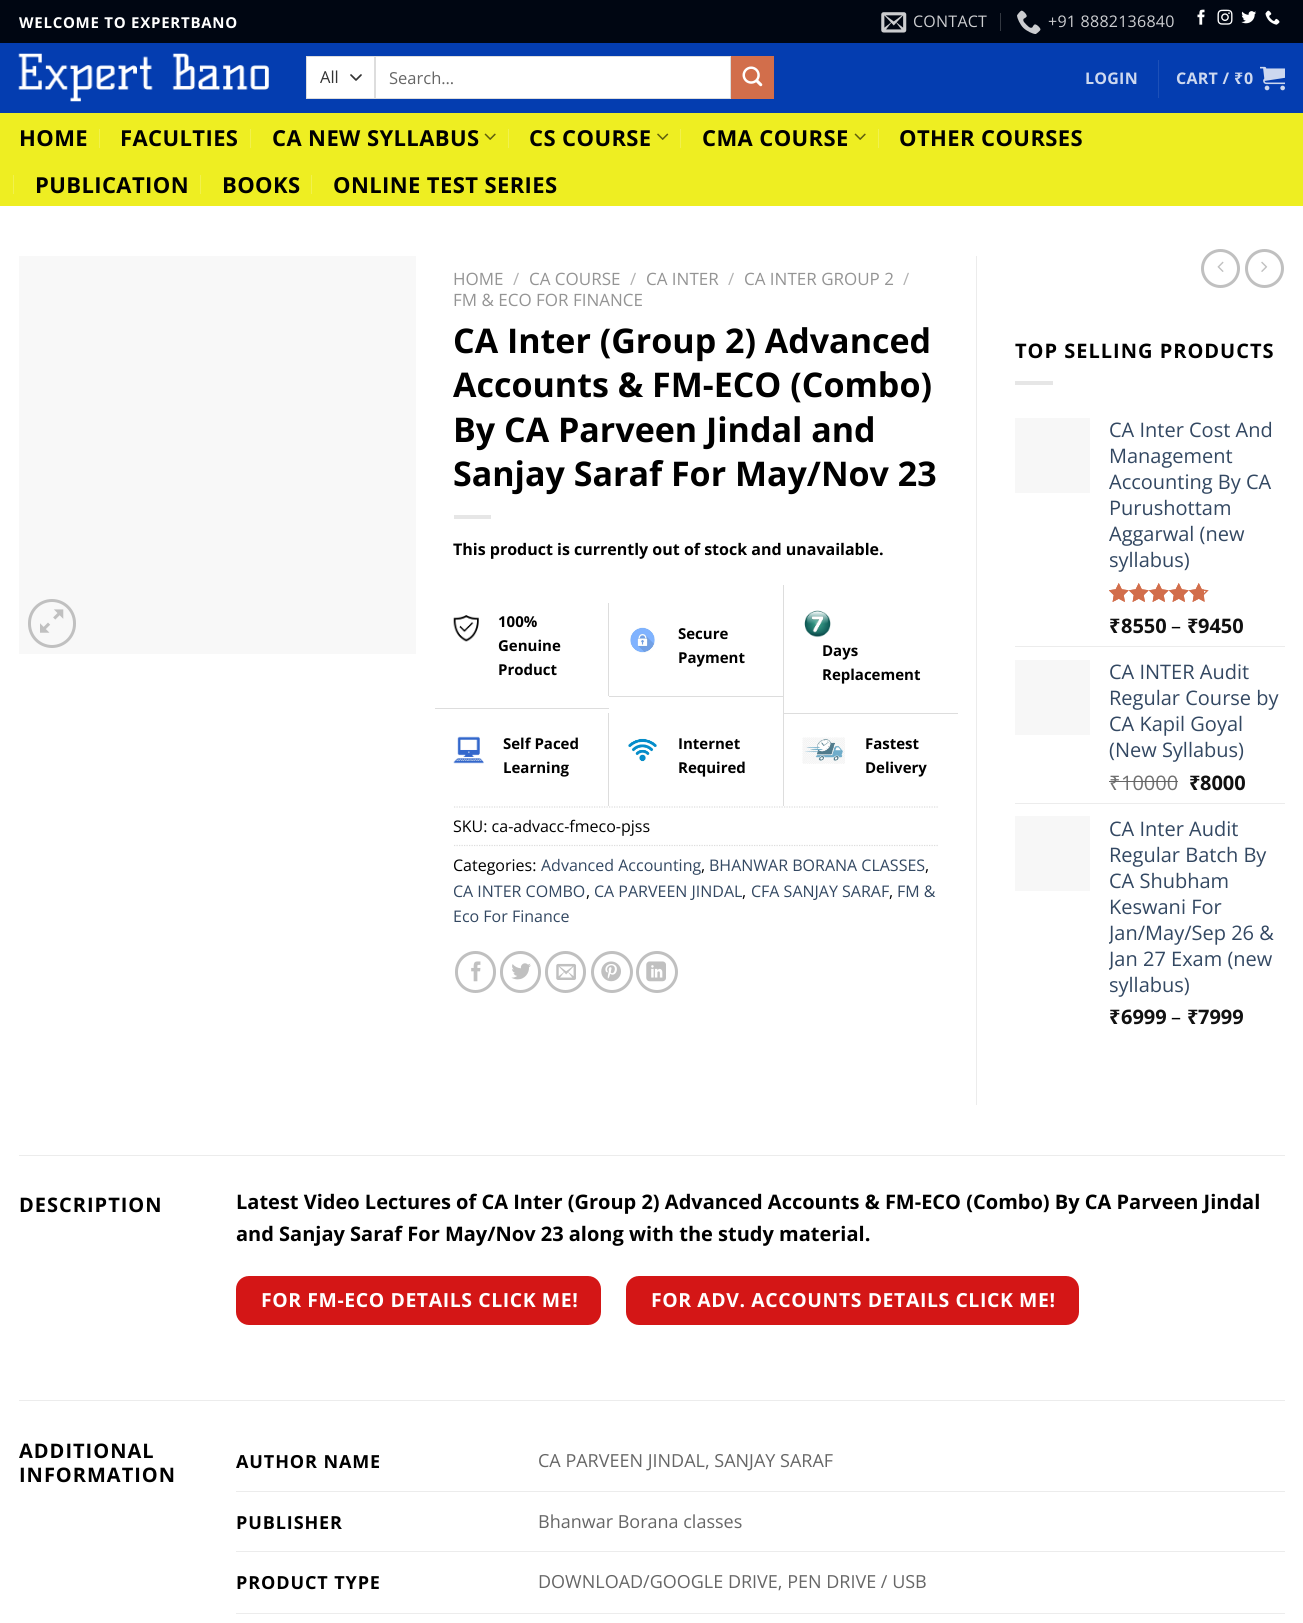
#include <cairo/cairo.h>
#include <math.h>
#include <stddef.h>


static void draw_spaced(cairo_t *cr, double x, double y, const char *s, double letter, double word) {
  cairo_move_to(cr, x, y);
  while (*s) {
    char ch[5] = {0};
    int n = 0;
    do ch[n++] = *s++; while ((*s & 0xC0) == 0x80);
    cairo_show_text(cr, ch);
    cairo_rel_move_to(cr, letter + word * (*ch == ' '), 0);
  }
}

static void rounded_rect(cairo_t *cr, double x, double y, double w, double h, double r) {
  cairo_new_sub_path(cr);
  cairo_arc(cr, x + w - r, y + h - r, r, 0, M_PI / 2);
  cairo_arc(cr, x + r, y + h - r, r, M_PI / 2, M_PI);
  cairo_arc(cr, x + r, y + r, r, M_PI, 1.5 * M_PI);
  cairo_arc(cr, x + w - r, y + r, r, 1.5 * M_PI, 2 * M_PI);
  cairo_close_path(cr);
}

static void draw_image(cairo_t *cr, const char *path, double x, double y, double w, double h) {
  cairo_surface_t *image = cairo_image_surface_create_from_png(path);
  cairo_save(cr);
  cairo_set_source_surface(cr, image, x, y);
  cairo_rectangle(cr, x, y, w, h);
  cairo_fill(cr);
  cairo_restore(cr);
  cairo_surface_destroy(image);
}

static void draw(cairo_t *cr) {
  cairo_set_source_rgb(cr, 1, 1, 1);
  cairo_paint(cr);
  cairo_set_source_rgb(cr, 0, 6 / 255.0, 18 / 255.0);
  cairo_rectangle(cr, 0, 0, 1303, 43);
  cairo_fill(cr);
  draw_image(cr, "images/1.png", 881, 12, 26, 21);
  cairo_set_source_rgb(cr, 51 / 255.0, 56 / 255.0, 65 / 255.0);
  cairo_rectangle(cr, 1000, 13, 1, 18);
  cairo_fill(cr);
  draw_image(cr, "images/2.png", 1017, 10, 24, 24);
  draw_image(cr, "images/3.png", 1197, 9, 8, 16);
  draw_image(cr, "images/4.png", 1217, 9, 16, 16);
  draw_image(cr, "images/5.png", 1241, 11, 16, 13);
  draw_image(cr, "images/6.png", 1265, 10, 15, 15);
  cairo_set_source_rgb(cr, 4 / 255.0, 61 / 255.0, 176 / 255.0);
  cairo_rectangle(cr, 0, 43, 1303, 70);
  cairo_fill(cr);
  draw_image(cr, "images/7.png", 18, 53, 251, 49);
  cairo_set_source_rgb(cr, 1, 1, 1);
  cairo_rectangle(cr, 307, 57, 67, 41);
  cairo_fill(cr);
  cairo_new_path(cr);
  cairo_move_to(cr, 351, 75);
  cairo_line_to(cr, 356, 80);
  cairo_line_to(cr, 361, 75);
  cairo_set_source_rgb(cr, 51 / 255.0, 51 / 255.0, 51 / 255.0);
  cairo_set_line_width(cr, 1.7);
  cairo_set_line_cap(cr, CAIRO_LINE_CAP_ROUND);
  cairo_set_line_join(cr, CAIRO_LINE_JOIN_ROUND);
  cairo_stroke(cr);
  cairo_rectangle(cr, 306.5, 56.5, 68, 42);
  cairo_set_source_rgb(cr, 221 / 255.0, 221 / 255.0, 221 / 255.0);
  cairo_set_line_width(cr, 1);
  cairo_set_line_cap(cr, CAIRO_LINE_CAP_BUTT);
  cairo_set_line_join(cr, CAIRO_LINE_JOIN_MITER);
  cairo_stroke(cr);
  cairo_set_source_rgb(cr, 1, 1, 1);
  cairo_rectangle(cr, 375.5, 56.5, 355, 42);
  cairo_fill_preserve(cr);
  cairo_set_source_rgb(cr, 221 / 255.0, 221 / 255.0, 221 / 255.0);
  cairo_stroke(cr);
  cairo_set_source_rgb(cr, 210 / 255.0, 110 / 255.0, 75 / 255.0);
  cairo_rectangle(cr, 731, 56, 43, 43);
  cairo_fill(cr);
  draw_image(cr, "images/8.png", 742, 66, 21, 21);
  cairo_set_source_rgb(cr, 29 / 255.0, 80 / 255.0, 184 / 255.0);
  cairo_rectangle(cr, 1158, 60, 1, 38);
  cairo_fill(cr);
  draw_image(cr, "images/9.png", 1260, 66, 25, 25);
  cairo_set_source_rgb(cr, 238 / 255.0, 238 / 255.0, 34 / 255.0);
  cairo_rectangle(cr, 0, 113, 1303, 93);
  cairo_fill(cr);
  cairo_set_source_rgb(cr, 241 / 255.0, 241 / 255.0, 78 / 255.0);
  cairo_rectangle(cr, 99, 129, 1, 19);
  cairo_fill(cr);
  cairo_rectangle(cr, 250, 129, 1, 19);
  cairo_fill(cr);
  draw_image(cr, "images/10.png", 484, 133, 12, 7);
  cairo_rectangle(cr, 508, 129, 1, 19);
  cairo_fill(cr);
  draw_image(cr, "images/11.png", 657, 133, 12, 7);
  cairo_rectangle(cr, 680, 129, 1, 19);
  cairo_fill(cr);
  draw_image(cr, "images/10.png", 854, 133, 12, 7);
  cairo_rectangle(cr, 878, 129, 1, 19);
  cairo_fill(cr);
  cairo_rectangle(cr, 13, 175, 1, 19);
  cairo_fill(cr);
  cairo_rectangle(cr, 200, 175, 1, 19);
  cairo_fill(cr);
  cairo_rectangle(cr, 311, 175, 1, 19);
  cairo_fill(cr);
  cairo_set_source_rgb(cr, 248 / 255.0, 248 / 255.0, 248 / 255.0);
  cairo_rectangle(cr, 19, 256, 397, 398);
  cairo_fill(cr);
  rounded_rect(cr, 29.5, 600.5, 45, 46, 22.5);
  cairo_set_source_rgb(cr, 192 / 255.0, 192 / 255.0, 192 / 255.0);
  cairo_set_line_width(cr, 3);
  cairo_stroke(cr);
  draw_image(cr, "images/12.png", 40, 609, 24, 24);
  cairo_set_source_rgb(cr, 236 / 255.0, 236 / 255.0, 236 / 255.0);
  cairo_rectangle(cr, 976, 256, 1, 849);
  cairo_fill(cr);
  cairo_set_source_rgb(cr, 230 / 255.0, 230 / 255.0, 230 / 255.0);
  cairo_rectangle(cr, 454, 515, 37, 4);
  cairo_fill(cr);
  draw_image(cr, "images/13.png", 453, 615, 26, 27);
  cairo_set_source_rgb(cr, 221 / 255.0, 221 / 255.0, 221 / 255.0);
  cairo_rectangle(cr, 435, 708, 174, 1);
  cairo_fill(cr);
  cairo_rectangle(cr, 608, 603, 1, 93);
  cairo_fill(cr);
  draw_image(cr, "images/14.png", 630, 627, 25, 26);
  cairo_rectangle(cr, 609, 696, 175, 1);
  cairo_fill(cr);
  cairo_rectangle(cr, 783, 585, 1, 221);
  cairo_fill(cr);
  draw_image(cr, "images/15.png", 804, 610, 27, 28);
  cairo_rectangle(cr, 784, 713, 174, 1);
  cairo_fill(cr);
  draw_image(cr, "images/16.png", 453, 736, 31, 28);
  cairo_rectangle(cr, 608, 713, 1, 93);
  cairo_fill(cr);
  draw_image(cr, "images/17.png", 628, 738, 29, 24);
  draw_image(cr, "images/18.png", 802, 737, 43, 27);
  cairo_new_path(cr);
  cairo_move_to(cr, 454, 807);
  cairo_line_to(cr, 939, 807);
  cairo_set_line_width(cr, 1.2);
  cairo_set_dash(cr, (double[]){1.25, 1.25}, 2, 0);
  cairo_stroke(cr);
  cairo_new_path(cr);
  cairo_move_to(cr, 454, 845.5);
  cairo_line_to(cr, 939, 845.5);
  cairo_stroke(cr);
  rounded_rect(cr, 456.5, 952.5, 38, 39, 19);
  cairo_set_source_rgb(cr, 192 / 255.0, 192 / 255.0, 192 / 255.0);
  cairo_set_line_width(cr, 3);
  cairo_set_dash(cr, NULL, 0, 0);
  cairo_stroke(cr);
  draw_image(cr, "images/19.png", 471, 961, 10, 21);
  rounded_rect(cr, 501.5, 952.5, 38, 39, 19);
  cairo_stroke(cr);
  draw_image(cr, "images/20.png", 511, 963, 20, 17);
  rounded_rect(cr, 546.5, 952.5, 38, 39, 19);
  cairo_stroke(cr);
  draw_image(cr, "images/21.png", 556, 963, 20, 17);
  cairo_arc(cr, 612, 972, 19.5, 0, 2 * M_PI);
  cairo_stroke(cr);
  draw_image(cr, "images/22.png", 601, 961, 20, 21);
  cairo_arc(cr, 657, 972, 19.5, 0, 2 * M_PI);
  cairo_stroke(cr);
  draw_image(cr, "images/23.png", 646, 961, 20, 21);
  cairo_arc(cr, 1220.5, 268.5, 18, 0, 2 * M_PI);
  cairo_stroke(cr);
  draw_image(cr, "images/24.png", 1217, 261, 7, 11);
  cairo_arc(cr, 1264.5, 268.5, 18, 0, 2 * M_PI);
  cairo_stroke(cr);
  draw_image(cr, "images/25.png", 1261, 261, 7, 11);
  cairo_set_source_rgb(cr, 230 / 255.0, 230 / 255.0, 230 / 255.0);
  cairo_rectangle(cr, 1015, 381, 38, 4);
  cairo_fill(cr);
  cairo_set_source_rgb(cr, 247 / 255.0, 247 / 255.0, 247 / 255.0);
  cairo_rectangle(cr, 1015, 418, 75, 75);
  cairo_fill(cr);
  draw_image(cr, "images/26.png", 1109, 583, 100, 19);
  draw_image(cr, "images/27.png", 1109, 583, 95, 19);
  cairo_set_source_rgb(cr, 236 / 255.0, 236 / 255.0, 236 / 255.0);
  cairo_rectangle(cr, 1015, 646, 270, 1);
  cairo_fill(cr);
  cairo_set_source_rgb(cr, 247 / 255.0, 247 / 255.0, 247 / 255.0);
  cairo_rectangle(cr, 1015, 660, 75, 75);
  cairo_fill(cr);
  cairo_set_source_rgb(cr, 236 / 255.0, 236 / 255.0, 236 / 255.0);
  cairo_rectangle(cr, 1015, 803, 270, 1);
  cairo_fill(cr);
  cairo_set_source_rgb(cr, 247 / 255.0, 247 / 255.0, 247 / 255.0);
  cairo_rectangle(cr, 1015, 816, 75, 75);
  cairo_fill(cr);
  cairo_set_source_rgb(cr, 236 / 255.0, 236 / 255.0, 236 / 255.0);
  cairo_rectangle(cr, 19, 1155, 1266, 1);
  cairo_fill(cr);
  cairo_set_source_rgb(cr, 212 / 255.0, 22 / 255.0, 22 / 255.0);
  rounded_rect(cr, 236, 1276, 365, 49, 13);
  cairo_fill(cr);
  rounded_rect(cr, 626, 1276, 453, 49, 13);
  cairo_fill(cr);
  cairo_set_source_rgb(cr, 236 / 255.0, 236 / 255.0, 236 / 255.0);
  cairo_rectangle(cr, 19, 1400, 1266, 1);
  cairo_fill(cr);
  cairo_rectangle(cr, 236, 1491, 1049, 1);
  cairo_fill(cr);
  cairo_rectangle(cr, 236, 1551, 1049, 1);
  cairo_fill(cr);
  cairo_rectangle(cr, 236, 1613, 1049, 1);
  cairo_fill(cr);
  cairo_select_font_face(cr, "Open Sans", CAIRO_FONT_SLANT_NORMAL, CAIRO_FONT_WEIGHT_BOLD);
  cairo_set_font_size(cr, 15);
  cairo_set_source_rgb(cr, 1, 1, 1);
  draw_spaced(cr, 19, 28, "WELCOME TO EXPERTBANO", 0.75, 0);
  cairo_select_font_face(cr, "Open Sans", CAIRO_FONT_SLANT_NORMAL, CAIRO_FONT_WEIGHT_NORMAL);
  cairo_set_font_size(cr, 16);
  cairo_set_source_rgb(cr, 204 / 255.0, 205 / 255.0, 208 / 255.0);
  draw_spaced(cr, 913, 27, "CONTACT", 0.25, 0);
  draw_spaced(cr, 1048, 27, "+91 8882136840", 0.25, 0);
  cairo_set_font_size(cr, 16.5);
  cairo_set_source_rgb(cr, 51 / 255.0, 51 / 255.0, 51 / 255.0);
  cairo_move_to(cr, 320, 83);
  cairo_show_text(cr, "All");
  cairo_set_source_rgb(cr, 102 / 255.0, 102 / 255.0, 102 / 255.0);
  cairo_move_to(cr, 389, 84);
  cairo_show_text(cr, "Search…");
  cairo_select_font_face(cr, "Open Sans", CAIRO_FONT_SLANT_NORMAL, CAIRO_FONT_WEIGHT_BOLD);
  cairo_set_font_size(cr, 16);
  cairo_set_source_rgb(cr, 205 / 255.0, 216 / 255.0, 239 / 255.0);
  draw_spaced(cr, 1085, 84, "LOGIN", 0.25, 0);
  draw_spaced(cr, 1176, 84, "CART /", 0.25, 0);
  cairo_select_font_face(cr, "Noto Sans", CAIRO_FONT_SLANT_NORMAL, CAIRO_FONT_WEIGHT_BOLD);
  draw_spaced(cr, 1234, 84, "₹", 0.25, 0);
  cairo_select_font_face(cr, "Open Sans", CAIRO_FONT_SLANT_NORMAL, CAIRO_FONT_WEIGHT_BOLD);
  draw_spaced(cr, 1244, 84, "0", 0.25, 0);
  cairo_set_font_size(cr, 22);
  cairo_set_source_rgb(cr, 0, 0, 0);
  draw_spaced(cr, 19, 146, "HOME", 0.4, 0);
  draw_spaced(cr, 120, 146, "FACULTIES", 0.4, 0);
  draw_spaced(cr, 272, 146, "CA NEW SYLLABUS", 0.4, 0);
  draw_spaced(cr, 529, 146, "CS COURSE", 0.4, 0);
  draw_spaced(cr, 702, 146, "CMA COURSE", 0.4, 0);
  draw_spaced(cr, 899, 146, "OTHER COURSES", 0.4, 0);
  draw_spaced(cr, 35, 193, "PUBLICATION", 0.4, 0);
  draw_spaced(cr, 222, 193, "BOOKS", 0.4, 0);
  draw_spaced(cr, 333, 193, "ONLINE TEST SERIES", 0.4, 0);
  cairo_select_font_face(cr, "Open Sans", CAIRO_FONT_SLANT_NORMAL, CAIRO_FONT_WEIGHT_NORMAL);
  cairo_set_font_size(cr, 17);
  cairo_set_source_rgb(cr, 148 / 255.0, 148 / 255.0, 148 / 255.0);
  cairo_move_to(cr, 453, 285);
  cairo_show_text(cr, "HOME");
  cairo_set_source_rgb(cr, 178 / 255.0, 178 / 255.0, 178 / 255.0);
  cairo_move_to(cr, 513, 285);
  cairo_show_text(cr, "/");
  cairo_set_source_rgb(cr, 148 / 255.0, 148 / 255.0, 148 / 255.0);
  cairo_move_to(cr, 529, 285);
  cairo_show_text(cr, "CA COURSE");
  cairo_set_source_rgb(cr, 178 / 255.0, 178 / 255.0, 178 / 255.0);
  cairo_move_to(cr, 630, 285);
  cairo_show_text(cr, "/");
  cairo_set_source_rgb(cr, 148 / 255.0, 148 / 255.0, 148 / 255.0);
  cairo_move_to(cr, 646, 285);
  cairo_show_text(cr, "CA INTER");
  cairo_set_source_rgb(cr, 178 / 255.0, 178 / 255.0, 178 / 255.0);
  cairo_move_to(cr, 728, 285);
  cairo_show_text(cr, "/");
  cairo_set_source_rgb(cr, 148 / 255.0, 148 / 255.0, 148 / 255.0);
  cairo_move_to(cr, 744, 285);
  cairo_show_text(cr, "CA INTER GROUP 2");
  cairo_set_source_rgb(cr, 178 / 255.0, 178 / 255.0, 178 / 255.0);
  cairo_move_to(cr, 903, 285);
  cairo_show_text(cr, "/");
  cairo_set_source_rgb(cr, 148 / 255.0, 148 / 255.0, 148 / 255.0);
  cairo_move_to(cr, 453, 306);
  cairo_show_text(cr, "FM & ECO FOR FINANCE");
  cairo_select_font_face(cr, "Open Sans", CAIRO_FONT_SLANT_NORMAL, CAIRO_FONT_WEIGHT_BOLD);
  cairo_set_font_size(cr, 34);
  cairo_set_source_rgb(cr, 0, 0, 0);
  cairo_move_to(cr, 453, 353);
  cairo_show_text(cr, "CA Inter (Group 2) Advanced");
  cairo_move_to(cr, 453, 397);
  cairo_show_text(cr, "Accounts & FM-ECO (Combo)");
  cairo_move_to(cr, 453, 442);
  cairo_show_text(cr, "By CA Parveen Jindal and");
  cairo_move_to(cr, 453, 486);
  cairo_show_text(cr, "Sanjay Saraf For May/Nov 23");
  cairo_set_font_size(cr, 16);
  cairo_move_to(cr, 453, 555);
  cairo_show_text(cr, "This product is currently out of stock and unavailable.");
  cairo_set_font_size(cr, 15);
  cairo_move_to(cr, 498, 627);
  cairo_show_text(cr, "100%");
  cairo_move_to(cr, 498, 651);
  cairo_show_text(cr, "Genuine");
  cairo_move_to(cr, 498, 675);
  cairo_show_text(cr, "Product");
  cairo_move_to(cr, 678, 639);
  cairo_show_text(cr, "Secure");
  cairo_move_to(cr, 678, 663);
  cairo_show_text(cr, "Payment");
  cairo_move_to(cr, 822, 656);
  cairo_show_text(cr, "Days");
  cairo_move_to(cr, 822, 680);
  cairo_show_text(cr, "Replacement");
  cairo_move_to(cr, 503, 749);
  cairo_show_text(cr, "Self Paced");
  cairo_move_to(cr, 503, 773);
  cairo_show_text(cr, "Learning");
  cairo_move_to(cr, 678, 749);
  cairo_show_text(cr, "Internet");
  cairo_move_to(cr, 678, 773);
  cairo_show_text(cr, "Required");
  cairo_move_to(cr, 865, 749);
  cairo_show_text(cr, "Fastest");
  cairo_move_to(cr, 865, 773);
  cairo_show_text(cr, "Delivery");
  cairo_select_font_face(cr, "Open Sans", CAIRO_FONT_SLANT_NORMAL, CAIRO_FONT_WEIGHT_NORMAL);
  cairo_set_font_size(cr, 16);
  cairo_move_to(cr, 453, 832);
  cairo_show_text(cr, "SKU: ca-advacc-fmeco-pjss");
  cairo_move_to(cr, 453, 871);
  cairo_show_text(cr, "Categories:");
  cairo_set_source_rgb(cr, 51 / 255.0, 72 / 255.0, 98 / 255.0);
  cairo_move_to(cr, 541, 871);
  cairo_show_text(cr, "Advanced Accounting");
  cairo_set_source_rgb(cr, 0, 0, 0);
  cairo_move_to(cr, 701, 871);
  cairo_show_text(cr, ",");
  cairo_set_source_rgb(cr, 51 / 255.0, 72 / 255.0, 98 / 255.0);
  cairo_move_to(cr, 709, 871);
  cairo_show_text(cr, "BHANWAR BORANA CLASSES");
  cairo_set_source_rgb(cr, 0, 0, 0);
  cairo_move_to(cr, 925, 871);
  cairo_show_text(cr, ",");
  cairo_set_source_rgb(cr, 51 / 255.0, 72 / 255.0, 98 / 255.0);
  cairo_move_to(cr, 453, 897);
  cairo_show_text(cr, "CA INTER COMBO");
  cairo_set_source_rgb(cr, 0, 0, 0);
  cairo_move_to(cr, 586, 897);
  cairo_show_text(cr, ",");
  cairo_set_source_rgb(cr, 51 / 255.0, 72 / 255.0, 98 / 255.0);
  cairo_move_to(cr, 594, 897);
  cairo_show_text(cr, "CA PARVEEN JINDAL");
  cairo_set_source_rgb(cr, 0, 0, 0);
  cairo_move_to(cr, 742, 897);
  cairo_show_text(cr, ",");
  cairo_set_source_rgb(cr, 51 / 255.0, 72 / 255.0, 98 / 255.0);
  cairo_move_to(cr, 751, 897);
  cairo_show_text(cr, "CFA SANJAY SARAF");
  cairo_set_source_rgb(cr, 0, 0, 0);
  cairo_move_to(cr, 889, 897);
  cairo_show_text(cr, ",");
  cairo_set_source_rgb(cr, 51 / 255.0, 72 / 255.0, 98 / 255.0);
  cairo_move_to(cr, 897, 897);
  cairo_show_text(cr, "FM &");
  cairo_move_to(cr, 453, 922);
  cairo_show_text(cr, "Eco For Finance");
  cairo_select_font_face(cr, "Open Sans", CAIRO_FONT_SLANT_NORMAL, CAIRO_FONT_WEIGHT_BOLD);
  cairo_set_font_size(cr, 20);
  cairo_set_source_rgb(cr, 0, 0, 0);
  draw_spaced(cr, 1015, 358, "TOP SELLING PRODUCTS", 1, 0);
  cairo_select_font_face(cr, "Open Sans", CAIRO_FONT_SLANT_NORMAL, CAIRO_FONT_WEIGHT_NORMAL);
  cairo_set_source_rgb(cr, 51 / 255.0, 72 / 255.0, 98 / 255.0);
  cairo_move_to(cr, 1109, 437);
  cairo_show_text(cr, "CA Inter Cost And");
  cairo_move_to(cr, 1109, 463);
  cairo_show_text(cr, "Management");
  cairo_move_to(cr, 1109, 489);
  cairo_show_text(cr, "Accounting By CA");
  cairo_move_to(cr, 1109, 515);
  cairo_show_text(cr, "Purushottam");
  cairo_move_to(cr, 1109, 541);
  cairo_show_text(cr, "Aggarwal (new");
  cairo_move_to(cr, 1109, 567);
  cairo_show_text(cr, "syllabus)");
  cairo_select_font_face(cr, "Noto Sans", CAIRO_FONT_SLANT_NORMAL, CAIRO_FONT_WEIGHT_BOLD);
  cairo_set_source_rgb(cr, 17 / 255.0, 17 / 255.0, 17 / 255.0);
  cairo_move_to(cr, 1109, 633);
  cairo_show_text(cr, "₹");
  cairo_select_font_face(cr, "Open Sans", CAIRO_FONT_SLANT_NORMAL, CAIRO_FONT_WEIGHT_BOLD);
  cairo_move_to(cr, 1121, 633);
  cairo_show_text(cr, "8550");
  cairo_select_font_face(cr, "Open Sans", CAIRO_FONT_SLANT_NORMAL, CAIRO_FONT_WEIGHT_NORMAL);
  cairo_set_source_rgb(cr, 0, 0, 0);
  cairo_move_to(cr, 1171, 633);
  cairo_show_text(cr, "–");
  cairo_select_font_face(cr, "Noto Sans", CAIRO_FONT_SLANT_NORMAL, CAIRO_FONT_WEIGHT_BOLD);
  cairo_set_source_rgb(cr, 17 / 255.0, 17 / 255.0, 17 / 255.0);
  cairo_move_to(cr, 1187, 633);
  cairo_show_text(cr, "₹");
  cairo_select_font_face(cr, "Open Sans", CAIRO_FONT_SLANT_NORMAL, CAIRO_FONT_WEIGHT_BOLD);
  cairo_move_to(cr, 1198, 633);
  cairo_show_text(cr, "9450");
  cairo_select_font_face(cr, "Open Sans", CAIRO_FONT_SLANT_NORMAL, CAIRO_FONT_WEIGHT_NORMAL);
  cairo_set_source_rgb(cr, 51 / 255.0, 72 / 255.0, 98 / 255.0);
  cairo_move_to(cr, 1109, 679);
  cairo_show_text(cr, "CA INTER Audit");
  cairo_move_to(cr, 1109, 705);
  cairo_show_text(cr, "Regular Course by");
  cairo_move_to(cr, 1109, 731);
  cairo_show_text(cr, "CA Kapil Goyal");
  cairo_move_to(cr, 1109, 757);
  cairo_show_text(cr, "(New Syllabus)");
  cairo_select_font_face(cr, "Noto Sans", CAIRO_FONT_SLANT_NORMAL, CAIRO_FONT_WEIGHT_NORMAL);
  cairo_set_source_rgb(cr, 112 / 255.0, 112 / 255.0, 112 / 255.0);
  cairo_move_to(cr, 1109, 790);
  cairo_show_text(cr, "₹");
  cairo_set_source_rgb(cr, 102 / 255.0, 102 / 255.0, 102 / 255.0);
  cairo_rectangle(cr, 1109, 781, 11, 1);
  cairo_fill(cr);
  cairo_select_font_face(cr, "Open Sans", CAIRO_FONT_SLANT_NORMAL, CAIRO_FONT_WEIGHT_NORMAL);
  cairo_set_source_rgb(cr, 112 / 255.0, 112 / 255.0, 112 / 255.0);
  cairo_move_to(cr, 1121, 790);
  cairo_show_text(cr, "10000");
  cairo_set_source_rgb(cr, 102 / 255.0, 102 / 255.0, 102 / 255.0);
  cairo_rectangle(cr, 1120, 781, 58, 1);
  cairo_fill(cr);
  cairo_select_font_face(cr, "Noto Sans", CAIRO_FONT_SLANT_NORMAL, CAIRO_FONT_WEIGHT_BOLD);
  cairo_set_source_rgb(cr, 17 / 255.0, 17 / 255.0, 17 / 255.0);
  cairo_move_to(cr, 1189, 790);
  cairo_show_text(cr, "₹");
  cairo_select_font_face(cr, "Open Sans", CAIRO_FONT_SLANT_NORMAL, CAIRO_FONT_WEIGHT_BOLD);
  cairo_move_to(cr, 1200, 790);
  cairo_show_text(cr, "8000");
  cairo_select_font_face(cr, "Open Sans", CAIRO_FONT_SLANT_NORMAL, CAIRO_FONT_WEIGHT_NORMAL);
  cairo_set_source_rgb(cr, 51 / 255.0, 72 / 255.0, 98 / 255.0);
  cairo_move_to(cr, 1109, 836);
  cairo_show_text(cr, "CA Inter Audit");
  cairo_move_to(cr, 1109, 862);
  cairo_show_text(cr, "Regular Batch By");
  cairo_move_to(cr, 1109, 888);
  cairo_show_text(cr, "CA Shubham");
  cairo_move_to(cr, 1109, 914);
  cairo_show_text(cr, "Keswani For");
  cairo_save(cr);
  cairo_rectangle(cr, 1109, 816, 176, 183);
  cairo_clip(cr);
  cairo_move_to(cr, 1109, 940);
  cairo_show_text(cr, "Jan/May/Sep 26 &");
  cairo_move_to(cr, 1109, 966);
  cairo_show_text(cr, "Jan 27 Exam (new");
  cairo_restore(cr);
  cairo_move_to(cr, 1109, 992);
  cairo_show_text(cr, "syllabus)");
  cairo_select_font_face(cr, "Noto Sans", CAIRO_FONT_SLANT_NORMAL, CAIRO_FONT_WEIGHT_BOLD);
  cairo_set_source_rgb(cr, 17 / 255.0, 17 / 255.0, 17 / 255.0);
  cairo_move_to(cr, 1109, 1024);
  cairo_show_text(cr, "₹");
  cairo_select_font_face(cr, "Open Sans", CAIRO_FONT_SLANT_NORMAL, CAIRO_FONT_WEIGHT_BOLD);
  cairo_move_to(cr, 1121, 1024);
  cairo_show_text(cr, "6999");
  cairo_select_font_face(cr, "Open Sans", CAIRO_FONT_SLANT_NORMAL, CAIRO_FONT_WEIGHT_NORMAL);
  cairo_set_source_rgb(cr, 0, 0, 0);
  cairo_move_to(cr, 1171, 1024);
  cairo_show_text(cr, "–");
  cairo_select_font_face(cr, "Noto Sans", CAIRO_FONT_SLANT_NORMAL, CAIRO_FONT_WEIGHT_BOLD);
  cairo_set_source_rgb(cr, 17 / 255.0, 17 / 255.0, 17 / 255.0);
  cairo_move_to(cr, 1187, 1024);
  cairo_show_text(cr, "₹");
  cairo_select_font_face(cr, "Open Sans", CAIRO_FONT_SLANT_NORMAL, CAIRO_FONT_WEIGHT_BOLD);
  cairo_move_to(cr, 1198, 1024);
  cairo_show_text(cr, "7999");
  cairo_set_source_rgb(cr, 0, 0, 0);
  draw_spaced(cr, 19, 1212, "DESCRIPTION", 1, 0);
  cairo_move_to(cr, 236, 1209);
  cairo_show_text(cr, "Latest Video Lectures of CA Inter (Group 2) Advanced Accounts & FM-ECO (Combo) By CA Parveen Jindal");
  cairo_move_to(cr, 236, 1241);
  cairo_show_text(cr, "and Sanjay Saraf For May/Nov 23 along with the study material.");
  cairo_set_font_size(cr, 19.4);
  cairo_set_source_rgb(cr, 1, 1, 1);
  draw_spaced(cr, 261, 1307, "FOR FM-ECO DETAILS CLICK ME!", 0.6, 0);
  draw_spaced(cr, 651, 1307, "FOR ADV. ACCOUNTS DETAILS CLICK ME!", 0.6, 0);
  cairo_set_font_size(cr, 20);
  cairo_set_source_rgb(cr, 0, 0, 0);
  draw_spaced(cr, 19, 1458, "ADDITIONAL", 1, 0);
  draw_spaced(cr, 19, 1482, "INFORMATION", 1, 0);
  cairo_set_font_size(cr, 18);
  draw_spaced(cr, 236, 1468, "AUTHOR NAME", 0.9, 0);
  cairo_select_font_face(cr, "Open Sans", CAIRO_FONT_SLANT_NORMAL, CAIRO_FONT_WEIGHT_NORMAL);
  cairo_set_source_rgb(cr, 102 / 255.0, 102 / 255.0, 102 / 255.0);
  cairo_move_to(cr, 538, 1467);
  cairo_show_text(cr, "CA PARVEEN JINDAL, SANJAY SARAF");
  cairo_select_font_face(cr, "Open Sans", CAIRO_FONT_SLANT_NORMAL, CAIRO_FONT_WEIGHT_BOLD);
  cairo_set_source_rgb(cr, 0, 0, 0);
  draw_spaced(cr, 236, 1529, "PUBLISHER", 0.9, 0);
  cairo_select_font_face(cr, "Open Sans", CAIRO_FONT_SLANT_NORMAL, CAIRO_FONT_WEIGHT_NORMAL);
  cairo_set_source_rgb(cr, 102 / 255.0, 102 / 255.0, 102 / 255.0);
  cairo_move_to(cr, 538, 1528);
  cairo_show_text(cr, "Bhanwar Borana classes");
  cairo_select_font_face(cr, "Open Sans", CAIRO_FONT_SLANT_NORMAL, CAIRO_FONT_WEIGHT_BOLD);
  cairo_set_source_rgb(cr, 0, 0, 0);
  draw_spaced(cr, 236, 1589, "PRODUCT TYPE", 0.9, 0);
  cairo_select_font_face(cr, "Open Sans", CAIRO_FONT_SLANT_NORMAL, CAIRO_FONT_WEIGHT_NORMAL);
  cairo_set_source_rgb(cr, 102 / 255.0, 102 / 255.0, 102 / 255.0);
  cairo_move_to(cr, 538, 1588);
  cairo_show_text(cr, "DOWNLOAD/GOOGLE DRIVE, PEN DRIVE / USB");
}

int main(void) {
  cairo_surface_t *surface = cairo_image_surface_create(CAIRO_FORMAT_RGB24, 1303, 1623);
  cairo_t *cr = cairo_create(surface);
  cairo_font_options_t *options = cairo_font_options_create();
  cairo_font_options_set_hint_metrics(options, CAIRO_HINT_METRICS_OFF);
  cairo_font_options_set_hint_style(options, CAIRO_HINT_STYLE_NONE);
  cairo_set_font_options(cr, options);
  cairo_set_miter_limit(cr, 4);
  draw(cr);
  cairo_surface_write_to_png(surface, "out.png");
  cairo_font_options_destroy(options);
  cairo_destroy(cr);
  cairo_surface_destroy(surface);
  return 0;
}
